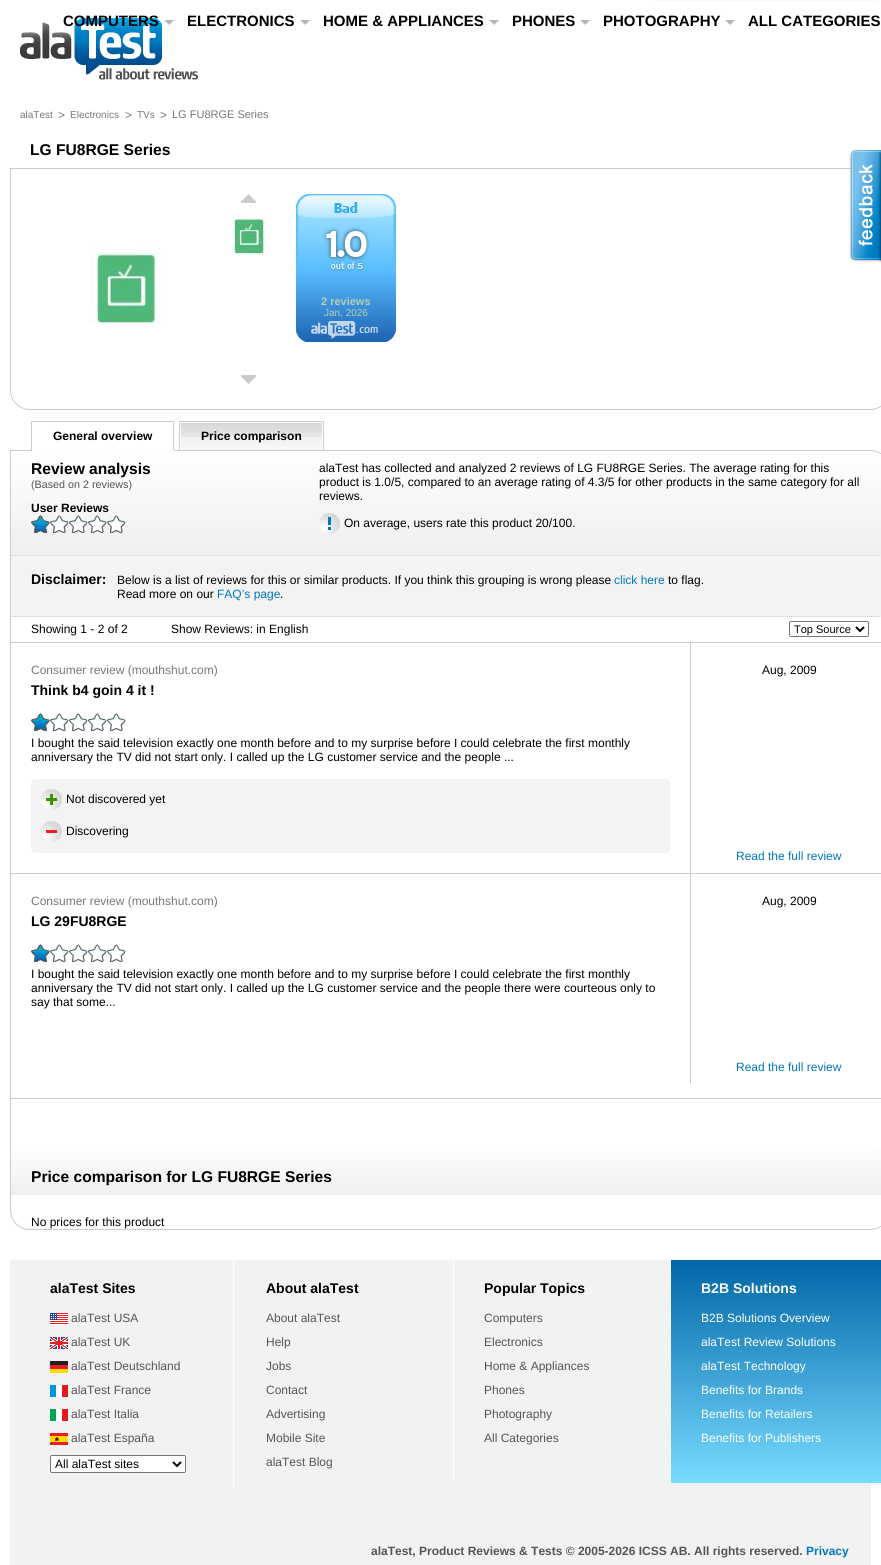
#include <cairo/cairo.h>
#include <math.h>
#include <stddef.h>


static void rounded_rect(cairo_t *cr, double x, double y, double w, double h, double r) {
  cairo_new_sub_path(cr);
  cairo_arc(cr, x + w - r, y + h - r, r, 0, M_PI / 2);
  cairo_arc(cr, x + r, y + h - r, r, M_PI / 2, M_PI);
  cairo_arc(cr, x + r, y + r, r, M_PI, 1.5 * M_PI);
  cairo_arc(cr, x + w - r, y + r, r, 1.5 * M_PI, 2 * M_PI);
  cairo_close_path(cr);
}

static void draw_image(cairo_t *cr, const char *path, double x, double y, double w, double h) {
  cairo_surface_t *image = cairo_image_surface_create_from_png(path);
  cairo_save(cr);
  cairo_set_source_surface(cr, image, x, y);
  cairo_rectangle(cr, x, y, w, h);
  cairo_fill(cr);
  cairo_restore(cr);
  cairo_surface_destroy(image);
}

static void draw(cairo_t *cr) {
  cairo_pattern_t *gradient;
  cairo_set_source_rgb(cr, 1, 1, 1);
  cairo_paint(cr);
  cairo_set_source_rgb(cr, 247 / 255.0, 247 / 255.0, 247 / 255.0);
  cairo_rectangle(cr, 654, 0, 223, 1);
  cairo_fill(cr);
  draw_image(cr, "images/2.png", 20, 18, 178, 62);
  draw_image(cr, "images/1.png", 164, 20, 11, 6);
  draw_image(cr, "images/1.png", 300, 20, 11, 6);
  draw_image(cr, "images/1.png", 489, 20, 11, 6);
  draw_image(cr, "images/1.png", 580, 20, 11, 6);
  draw_image(cr, "images/1.png", 725, 20, 11, 6);
  cairo_new_path(cr);
  cairo_move_to(cr, 10.5, 168.5);
  cairo_line_to(cr, 870, 168.5);
  cairo_curve_to(cr, 881, 168.5, 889.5, 177, 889.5, 188);
  cairo_line_to(cr, 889.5, 390);
  cairo_curve_to(cr, 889.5, 401, 881, 409.5, 870, 409.5);
  cairo_line_to(cr, 30, 409.5);
  cairo_curve_to(cr, 19, 409.5, 10.5, 401, 10.5, 390);
  cairo_close_path(cr);
  cairo_set_source_rgb(cr, 204 / 255.0, 204 / 255.0, 204 / 255.0);
  cairo_set_line_width(cr, 1);
  cairo_stroke(cr);
  draw_image(cr, "images/3.png", 90, 244, 72, 81);
  draw_image(cr, "images/4.png", 241, 194, 15, 9);
  draw_image(cr, "images/5.png", 231, 214, 36, 42);
  draw_image(cr, "images/6.png", 241, 375, 15, 9);
  draw_image(cr, "images/7.png", 296, 194, 100, 148);
  cairo_new_path(cr);
  cairo_move_to(cr, 10.5, 450.5);
  cairo_line_to(cr, 870, 450.5);
  cairo_curve_to(cr, 881, 450.5, 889.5, 459, 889.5, 470);
  cairo_line_to(cr, 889.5, 1210);
  cairo_curve_to(cr, 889.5, 1221, 881, 1229.5, 870, 1229.5);
  cairo_line_to(cr, 30, 1229.5);
  cairo_curve_to(cr, 19, 1229.5, 10.5, 1221, 10.5, 1210);
  cairo_close_path(cr);
  cairo_stroke(cr);
  cairo_rectangle(cr, 31, 421, 143, 1);
  cairo_fill(cr);
  cairo_rectangle(cr, 173, 421, 1, 30);
  cairo_fill(cr);
  cairo_set_source_rgb(cr, 1, 1, 1);
  cairo_rectangle(cr, 31, 450, 143, 1);
  cairo_fill(cr);
  cairo_set_source_rgb(cr, 204 / 255.0, 204 / 255.0, 204 / 255.0);
  cairo_rectangle(cr, 31, 421, 1, 30);
  cairo_fill(cr);
  cairo_rectangle(cr, 179.5, 421.5, 144, 29);
  cairo_stroke(cr);
  draw_image(cr, "images/8.png", 181, 423, 141, 27);
  gradient = cairo_pattern_create_linear(450, 451, 450, 555);
  cairo_pattern_add_color_stop_rgba(gradient, 0, 1, 1, 1, 1);
  cairo_pattern_add_color_stop_rgba(gradient, 1, 239 / 255.0, 239 / 255.0, 239 / 255.0, 1);
  cairo_set_source(cr, gradient);
  cairo_pattern_destroy(gradient);
  cairo_new_path(cr);
  cairo_move_to(cr, 11, 451);
  cairo_line_to(cr, 869, 451);
  cairo_curve_to(cr, 880, 451, 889, 460, 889, 471);
  cairo_line_to(cr, 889, 555);
  cairo_line_to(cr, 11, 555);
  cairo_close_path(cr);
  cairo_fill(cr);
  draw_image(cr, "images/9.png", 319, 513, 21, 21);
  draw_image(cr, "images/10.png", 31, 515, 95, 18);
  draw_image(cr, "images/11.png", 31, 515, 19, 18);
  cairo_set_source_rgb(cr, 243 / 255.0, 243 / 255.0, 243 / 255.0);
  cairo_rectangle(cr, 11, 555, 870, 62);
  cairo_fill(cr);
  cairo_new_path(cr);
  cairo_move_to(cr, 11, 555.5);
  cairo_line_to(cr, 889, 555.5);
  cairo_set_source_rgb(cr, 204 / 255.0, 204 / 255.0, 204 / 255.0);
  cairo_set_dash(cr, (double[]){1, 1}, 2, 0);
  cairo_stroke(cr);
  cairo_new_path(cr);
  cairo_move_to(cr, 11, 616.5);
  cairo_line_to(cr, 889, 616.5);
  cairo_stroke(cr);
  rounded_rect(cr, 789.5, 621.5, 79, 15, 1.5);
  cairo_set_source_rgb(cr, 118 / 255.0, 118 / 255.0, 118 / 255.0);
  cairo_set_dash(cr, NULL, 0, 0);
  cairo_stroke(cr);
  cairo_new_path(cr);
  cairo_move_to(cr, 856, 627);
  cairo_line_to(cr, 860, 631);
  cairo_line_to(cr, 864, 627);
  cairo_set_source_rgb(cr, 0, 0, 0);
  cairo_set_line_width(cr, 2);
  cairo_stroke(cr);
  cairo_set_source_rgb(cr, 204 / 255.0, 204 / 255.0, 204 / 255.0);
  cairo_rectangle(cr, 11, 642, 870, 1);
  cairo_fill(cr);
  cairo_rectangle(cr, 690, 643, 1, 230);
  cairo_fill(cr);
  draw_image(cr, "images/12.png", 31, 713, 95, 18);
  draw_image(cr, "images/13.png", 31, 713, 19, 18);
  cairo_set_source_rgb(cr, 243 / 255.0, 243 / 255.0, 243 / 255.0);
  rounded_rect(cr, 31, 779, 639, 74, 5);
  cairo_fill(cr);
  draw_image(cr, "images/14.png", 41, 789, 21, 21);
  draw_image(cr, "images/15.png", 41, 821, 21, 21);
  cairo_set_source_rgb(cr, 204 / 255.0, 204 / 255.0, 204 / 255.0);
  cairo_rectangle(cr, 11, 873, 870, 1);
  cairo_fill(cr);
  cairo_rectangle(cr, 690, 874, 1, 210);
  cairo_fill(cr);
  draw_image(cr, "images/12.png", 31, 944, 95, 18);
  draw_image(cr, "images/13.png", 31, 944, 19, 18);
  cairo_rectangle(cr, 11, 1098, 870, 1);
  cairo_fill(cr);
  gradient = cairo_pattern_create_linear(450, 1144, 450, 1195);
  cairo_pattern_add_color_stop_rgba(gradient, 0, 1, 1, 1, 1);
  cairo_pattern_add_color_stop_rgba(gradient, 1, 239 / 255.0, 239 / 255.0, 239 / 255.0, 1);
  cairo_set_source(cr, gradient);
  cairo_pattern_destroy(gradient);
  cairo_new_path(cr);
  cairo_move_to(cr, 11, 1144);
  cairo_line_to(cr, 869, 1144);
  cairo_curve_to(cr, 880, 1144, 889, 1153, 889, 1164);
  cairo_line_to(cr, 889, 1195);
  cairo_line_to(cr, 11, 1195);
  cairo_close_path(cr);
  cairo_fill(cr);
  draw_image(cr, "images/16.png", 849, 150, 32, 113);
  cairo_set_source_rgb(cr, 242 / 255.0, 242 / 255.0, 242 / 255.0);
  cairo_rectangle(cr, 10, 1260, 861, 305);
  cairo_fill(cr);
  cairo_set_source_rgb(cr, 1, 1, 1);
  cairo_rectangle(cr, 233, 1260, 1, 228);
  cairo_fill(cr);
  draw_image(cr, "images/17.png", 50, 1313, 18, 12);
  draw_image(cr, "images/18.png", 50, 1337, 18, 12);
  draw_image(cr, "images/19.png", 50, 1361, 18, 12);
  draw_image(cr, "images/20.png", 50, 1385, 18, 12);
  draw_image(cr, "images/21.png", 50, 1409, 18, 12);
  draw_image(cr, "images/22.png", 50, 1433, 18, 12);
  rounded_rect(cr, 50.5, 1455.5, 135, 17, 1.5);
  cairo_fill_preserve(cr);
  cairo_set_source_rgb(cr, 118 / 255.0, 118 / 255.0, 118 / 255.0);
  cairo_set_line_width(cr, 1);
  cairo_stroke(cr);
  cairo_new_path(cr);
  cairo_move_to(cr, 173, 1462);
  cairo_line_to(cr, 177, 1466);
  cairo_line_to(cr, 181, 1462);
  cairo_set_source_rgb(cr, 0, 0, 0);
  cairo_set_line_width(cr, 2);
  cairo_stroke(cr);
  cairo_set_source_rgb(cr, 1, 1, 1);
  cairo_rectangle(cr, 453, 1260, 1, 223);
  cairo_fill(cr);
  gradient = cairo_pattern_create_linear(780, 1260, 780, 1483);
  cairo_pattern_add_color_stop_rgba(gradient, 0, 0, 102 / 255.0, 167 / 255.0, 1);
  cairo_pattern_add_color_stop_rgba(gradient, 1, 120 / 255.0, 220 / 255.0, 1, 1);
  cairo_set_source(cr, gradient);
  cairo_pattern_destroy(gradient);
  cairo_rectangle(cr, 671, 1260, 210, 223);
  cairo_fill(cr);
  cairo_select_font_face(cr, "Liberation Sans", CAIRO_FONT_SLANT_NORMAL, CAIRO_FONT_WEIGHT_BOLD);
  cairo_set_font_size(cr, 15);
  cairo_set_source_rgb(cr, 0, 0, 0);
  cairo_move_to(cr, 63, 26);
  cairo_show_text(cr, "COMPUTERS");
  cairo_move_to(cr, 187, 26);
  cairo_show_text(cr, "ELECTRONICS");
  cairo_move_to(cr, 323, 26);
  cairo_show_text(cr, "HOME & APPLIANCES");
  cairo_move_to(cr, 512, 26);
  cairo_show_text(cr, "PHONES");
  cairo_move_to(cr, 603, 26);
  cairo_show_text(cr, "PHOTOGRAPHY");
  cairo_move_to(cr, 748, 26);
  cairo_show_text(cr, "ALL CATEGORIES");
  cairo_select_font_face(cr, "Liberation Sans", CAIRO_FONT_SLANT_NORMAL, CAIRO_FONT_WEIGHT_NORMAL);
  cairo_set_font_size(cr, 10);
  cairo_set_source_rgb(cr, 119 / 255.0, 119 / 255.0, 119 / 255.0);
  cairo_move_to(cr, 20, 118);
  cairo_show_text(cr, "alaTest");
  cairo_set_font_size(cr, 12);
  cairo_move_to(cr, 58, 119);
  cairo_show_text(cr, ">");
  cairo_set_font_size(cr, 10);
  cairo_move_to(cr, 70, 118);
  cairo_show_text(cr, "Electronics");
  cairo_set_font_size(cr, 12);
  cairo_move_to(cr, 125, 119);
  cairo_show_text(cr, ">");
  cairo_set_font_size(cr, 10);
  cairo_move_to(cr, 137, 118);
  cairo_show_text(cr, "TVs");
  cairo_set_font_size(cr, 12);
  cairo_move_to(cr, 160, 119);
  cairo_show_text(cr, ">");
  cairo_set_font_size(cr, 11);
  cairo_move_to(cr, 172, 118);
  cairo_show_text(cr, "LG FU8RGE Series");
  cairo_select_font_face(cr, "Liberation Sans", CAIRO_FONT_SLANT_NORMAL, CAIRO_FONT_WEIGHT_BOLD);
  cairo_set_font_size(cr, 15.6);
  cairo_set_source_rgb(cr, 0, 0, 0);
  cairo_move_to(cr, 30, 155);
  cairo_show_text(cr, "LG FU8RGE Series");
  cairo_set_font_size(cr, 11);
  cairo_set_source_rgb(cr, 182 / 255.0, 205 / 255.0, 178 / 255.0);
  cairo_move_to(cr, 321, 305);
  cairo_show_text(cr, "2 reviews");
  cairo_select_font_face(cr, "Liberation Sans", CAIRO_FONT_SLANT_NORMAL, CAIRO_FONT_WEIGHT_NORMAL);
  cairo_set_font_size(cr, 10);
  cairo_move_to(cr, 324, 316);
  cairo_show_text(cr, "Jan, 2026");
  cairo_select_font_face(cr, "Liberation Sans", CAIRO_FONT_SLANT_NORMAL, CAIRO_FONT_WEIGHT_BOLD);
  cairo_set_font_size(cr, 12);
  cairo_set_source_rgb(cr, 0, 0, 0);
  cairo_move_to(cr, 53, 440);
  cairo_show_text(cr, "General overview");
  cairo_move_to(cr, 201, 440);
  cairo_show_text(cr, "Price comparison");
  cairo_set_font_size(cr, 15.6);
  cairo_move_to(cr, 31, 474);
  cairo_show_text(cr, "Review analysis");
  cairo_select_font_face(cr, "Liberation Sans", CAIRO_FONT_SLANT_NORMAL, CAIRO_FONT_WEIGHT_NORMAL);
  cairo_set_font_size(cr, 12);
  cairo_move_to(cr, 319, 472);
  cairo_show_text(cr, "alaTest has collected and analyzed 2 reviews of LG FU8RGE Series. The average rating for this");
  cairo_move_to(cr, 319, 486);
  cairo_show_text(cr, "product is 1.0/5, compared to an average rating of 4.3/5 for other products in the same category for all");
  cairo_move_to(cr, 319, 500);
  cairo_show_text(cr, "reviews.");
  cairo_move_to(cr, 344, 527);
  cairo_show_text(cr, "On average, users rate this product 20/100.");
  cairo_set_font_size(cr, 10.75);
  cairo_set_source_rgb(cr, 85 / 255.0, 85 / 255.0, 85 / 255.0);
  cairo_move_to(cr, 31, 488);
  cairo_show_text(cr, "(Based on 2 reviews)");
  cairo_select_font_face(cr, "Liberation Sans", CAIRO_FONT_SLANT_NORMAL, CAIRO_FONT_WEIGHT_BOLD);
  cairo_set_font_size(cr, 12);
  cairo_set_source_rgb(cr, 0, 0, 0);
  cairo_move_to(cr, 31, 512);
  cairo_show_text(cr, "User Reviews");
  cairo_set_font_size(cr, 14);
  cairo_move_to(cr, 31, 584);
  cairo_show_text(cr, "Disclaimer:");
  cairo_select_font_face(cr, "Liberation Sans", CAIRO_FONT_SLANT_NORMAL, CAIRO_FONT_WEIGHT_NORMAL);
  cairo_set_font_size(cr, 12);
  cairo_move_to(cr, 117, 584);
  cairo_show_text(cr, "Below is a list of reviews for this or similar products. If you think this grouping is wrong please");
  cairo_set_source_rgb(cr, 0, 120 / 255.0, 190 / 255.0);
  cairo_move_to(cr, 614, 584);
  cairo_show_text(cr, "click here");
  cairo_set_source_rgb(cr, 0, 0, 0);
  cairo_move_to(cr, 668, 584);
  cairo_show_text(cr, "to flag.");
  cairo_move_to(cr, 117, 598);
  cairo_show_text(cr, "Read more on our");
  cairo_set_source_rgb(cr, 0, 120 / 255.0, 190 / 255.0);
  cairo_move_to(cr, 217, 598);
  cairo_show_text(cr, "FAQ’s page");
  cairo_set_source_rgb(cr, 0, 0, 0);
  cairo_move_to(cr, 280, 598);
  cairo_show_text(cr, ".");
  cairo_move_to(cr, 31, 633);
  cairo_show_text(cr, "Showing 1 - 2 of 2");
  cairo_move_to(cr, 171, 633);
  cairo_show_text(cr, "Show Reviews: in English");
  cairo_set_font_size(cr, 11);
  cairo_move_to(cr, 794, 633);
  cairo_show_text(cr, "Top Source");
  cairo_set_font_size(cr, 12);
  cairo_set_source_rgb(cr, 119 / 255.0, 119 / 255.0, 119 / 255.0);
  cairo_move_to(cr, 31, 674);
  cairo_show_text(cr, "Consumer review (mouthshut.com)");
  cairo_select_font_face(cr, "Liberation Sans", CAIRO_FONT_SLANT_NORMAL, CAIRO_FONT_WEIGHT_BOLD);
  cairo_set_font_size(cr, 14);
  cairo_set_source_rgb(cr, 0, 0, 0);
  cairo_move_to(cr, 31, 695);
  cairo_show_text(cr, "Think b4 goin 4 it !");
  cairo_select_font_face(cr, "Liberation Sans", CAIRO_FONT_SLANT_NORMAL, CAIRO_FONT_WEIGHT_NORMAL);
  cairo_set_font_size(cr, 12);
  cairo_move_to(cr, 31, 747);
  cairo_show_text(cr, "I bought the said television exactly one month before and to my surprise before I could celebrate the first monthly");
  cairo_move_to(cr, 31, 761);
  cairo_show_text(cr, "anniversary the TV did not start only. I called up the LG customer service and the people ...");
  cairo_move_to(cr, 66, 803);
  cairo_show_text(cr, "Not discovered yet");
  cairo_move_to(cr, 66, 835);
  cairo_show_text(cr, "Discovering");
  cairo_move_to(cr, 762, 674);
  cairo_show_text(cr, "Aug, 2009");
  cairo_set_source_rgb(cr, 0, 120 / 255.0, 190 / 255.0);
  cairo_move_to(cr, 736, 860);
  cairo_show_text(cr, "Read the full review");
  cairo_set_source_rgb(cr, 119 / 255.0, 119 / 255.0, 119 / 255.0);
  cairo_move_to(cr, 31, 905);
  cairo_show_text(cr, "Consumer review (mouthshut.com)");
  cairo_select_font_face(cr, "Liberation Sans", CAIRO_FONT_SLANT_NORMAL, CAIRO_FONT_WEIGHT_BOLD);
  cairo_set_font_size(cr, 14);
  cairo_set_source_rgb(cr, 0, 0, 0);
  cairo_move_to(cr, 31, 926);
  cairo_show_text(cr, "LG 29FU8RGE");
  cairo_select_font_face(cr, "Liberation Sans", CAIRO_FONT_SLANT_NORMAL, CAIRO_FONT_WEIGHT_NORMAL);
  cairo_set_font_size(cr, 12);
  cairo_move_to(cr, 31, 978);
  cairo_show_text(cr, "I bought the said television exactly one month before and to my surprise before I could celebrate the first monthly");
  cairo_move_to(cr, 31, 992);
  cairo_show_text(cr, "anniversary the TV did not start only. I called up the LG customer service and the people there were courteous only to");
  cairo_move_to(cr, 31, 1006);
  cairo_show_text(cr, "say that some...");
  cairo_move_to(cr, 762, 905);
  cairo_show_text(cr, "Aug, 2009");
  cairo_set_source_rgb(cr, 0, 120 / 255.0, 190 / 255.0);
  cairo_move_to(cr, 736, 1071);
  cairo_show_text(cr, "Read the full review");
  cairo_select_font_face(cr, "Liberation Sans", CAIRO_FONT_SLANT_NORMAL, CAIRO_FONT_WEIGHT_BOLD);
  cairo_set_font_size(cr, 15.6);
  cairo_set_source_rgb(cr, 0, 0, 0);
  cairo_move_to(cr, 31, 1182);
  cairo_show_text(cr, "Price comparison for LG FU8RGE Series");
  cairo_select_font_face(cr, "Liberation Sans", CAIRO_FONT_SLANT_NORMAL, CAIRO_FONT_WEIGHT_NORMAL);
  cairo_set_font_size(cr, 12);
  cairo_move_to(cr, 31, 1226);
  cairo_show_text(cr, "No prices for this product");
  cairo_select_font_face(cr, "Liberation Sans", CAIRO_FONT_SLANT_NORMAL, CAIRO_FONT_WEIGHT_BOLD);
  cairo_set_font_size(cr, 14);
  cairo_move_to(cr, 50, 1293);
  cairo_show_text(cr, "alaTest Sites");
  cairo_select_font_face(cr, "Liberation Sans", CAIRO_FONT_SLANT_NORMAL, CAIRO_FONT_WEIGHT_NORMAL);
  cairo_set_font_size(cr, 12);
  cairo_set_source_rgb(cr, 85 / 255.0, 85 / 255.0, 85 / 255.0);
  cairo_move_to(cr, 71, 1322);
  cairo_show_text(cr, "alaTest USA");
  cairo_move_to(cr, 71, 1346);
  cairo_show_text(cr, "alaTest UK");
  cairo_move_to(cr, 71, 1370);
  cairo_show_text(cr, "alaTest Deutschland");
  cairo_move_to(cr, 71, 1394);
  cairo_show_text(cr, "alaTest France");
  cairo_move_to(cr, 71, 1418);
  cairo_show_text(cr, "alaTest Italia");
  cairo_move_to(cr, 71, 1442);
  cairo_show_text(cr, "alaTest España");
  cairo_set_source_rgb(cr, 0, 0, 0);
  cairo_move_to(cr, 55, 1468);
  cairo_show_text(cr, "All alaTest sites");
  cairo_select_font_face(cr, "Liberation Sans", CAIRO_FONT_SLANT_NORMAL, CAIRO_FONT_WEIGHT_BOLD);
  cairo_set_font_size(cr, 14);
  cairo_move_to(cr, 266, 1293);
  cairo_show_text(cr, "About alaTest");
  cairo_select_font_face(cr, "Liberation Sans", CAIRO_FONT_SLANT_NORMAL, CAIRO_FONT_WEIGHT_NORMAL);
  cairo_set_font_size(cr, 12);
  cairo_set_source_rgb(cr, 85 / 255.0, 85 / 255.0, 85 / 255.0);
  cairo_move_to(cr, 266, 1322);
  cairo_show_text(cr, "About alaTest");
  cairo_move_to(cr, 266, 1346);
  cairo_show_text(cr, "Help");
  cairo_move_to(cr, 266, 1370);
  cairo_show_text(cr, "Jobs");
  cairo_move_to(cr, 266, 1394);
  cairo_show_text(cr, "Contact");
  cairo_move_to(cr, 266, 1418);
  cairo_show_text(cr, "Advertising");
  cairo_move_to(cr, 266, 1442);
  cairo_show_text(cr, "Mobile Site");
  cairo_move_to(cr, 266, 1466);
  cairo_show_text(cr, "alaTest Blog");
  cairo_select_font_face(cr, "Liberation Sans", CAIRO_FONT_SLANT_NORMAL, CAIRO_FONT_WEIGHT_BOLD);
  cairo_set_font_size(cr, 14);
  cairo_set_source_rgb(cr, 0, 0, 0);
  cairo_move_to(cr, 484, 1293);
  cairo_show_text(cr, "Popular Topics");
  cairo_select_font_face(cr, "Liberation Sans", CAIRO_FONT_SLANT_NORMAL, CAIRO_FONT_WEIGHT_NORMAL);
  cairo_set_font_size(cr, 12);
  cairo_set_source_rgb(cr, 85 / 255.0, 85 / 255.0, 85 / 255.0);
  cairo_move_to(cr, 484, 1322);
  cairo_show_text(cr, "Computers");
  cairo_move_to(cr, 484, 1346);
  cairo_show_text(cr, "Electronics");
  cairo_move_to(cr, 484, 1370);
  cairo_show_text(cr, "Home & Appliances");
  cairo_move_to(cr, 484, 1394);
  cairo_show_text(cr, "Phones");
  cairo_move_to(cr, 484, 1418);
  cairo_show_text(cr, "Photography");
  cairo_move_to(cr, 484, 1442);
  cairo_show_text(cr, "All Categories");
  cairo_select_font_face(cr, "Liberation Sans", CAIRO_FONT_SLANT_NORMAL, CAIRO_FONT_WEIGHT_BOLD);
  cairo_set_font_size(cr, 14);
  cairo_set_source_rgb(cr, 1, 1, 1);
  cairo_move_to(cr, 701, 1293);
  cairo_show_text(cr, "B2B Solutions");
  cairo_select_font_face(cr, "Liberation Sans", CAIRO_FONT_SLANT_NORMAL, CAIRO_FONT_WEIGHT_NORMAL);
  cairo_set_font_size(cr, 12);
  cairo_move_to(cr, 701, 1322);
  cairo_show_text(cr, "B2B Solutions Overview");
  cairo_move_to(cr, 701, 1346);
  cairo_show_text(cr, "alaTest Review Solutions");
  cairo_move_to(cr, 701, 1370);
  cairo_show_text(cr, "alaTest Technology");
  cairo_move_to(cr, 701, 1394);
  cairo_show_text(cr, "Benefits for Brands");
  cairo_move_to(cr, 701, 1418);
  cairo_show_text(cr, "Benefits for Retailers");
  cairo_move_to(cr, 701, 1442);
  cairo_show_text(cr, "Benefits for Publishers");
  cairo_select_font_face(cr, "Liberation Sans", CAIRO_FONT_SLANT_NORMAL, CAIRO_FONT_WEIGHT_BOLD);
  cairo_set_source_rgb(cr, 85 / 255.0, 85 / 255.0, 85 / 255.0);
  cairo_move_to(cr, 371, 1555);
  cairo_show_text(cr, "alaTest, Product Reviews & Tests © 2005-2026 ICSS AB. All rights reserved.");
  cairo_set_source_rgb(cr, 0, 120 / 255.0, 190 / 255.0);
  cairo_move_to(cr, 806, 1555);
  cairo_show_text(cr, "Privacy");
}

int main(void) {
  cairo_surface_t *surface = cairo_image_surface_create(CAIRO_FORMAT_RGB24, 881, 1565);
  cairo_t *cr = cairo_create(surface);
  cairo_font_options_t *options = cairo_font_options_create();
  cairo_font_options_set_hint_metrics(options, CAIRO_HINT_METRICS_OFF);
  cairo_font_options_set_hint_style(options, CAIRO_HINT_STYLE_NONE);
  cairo_set_font_options(cr, options);
  cairo_set_miter_limit(cr, 4);
  draw(cr);
  cairo_surface_write_to_png(surface, "out.png");
  cairo_font_options_destroy(options);
  cairo_destroy(cr);
  cairo_surface_destroy(surface);
  return 0;
}
